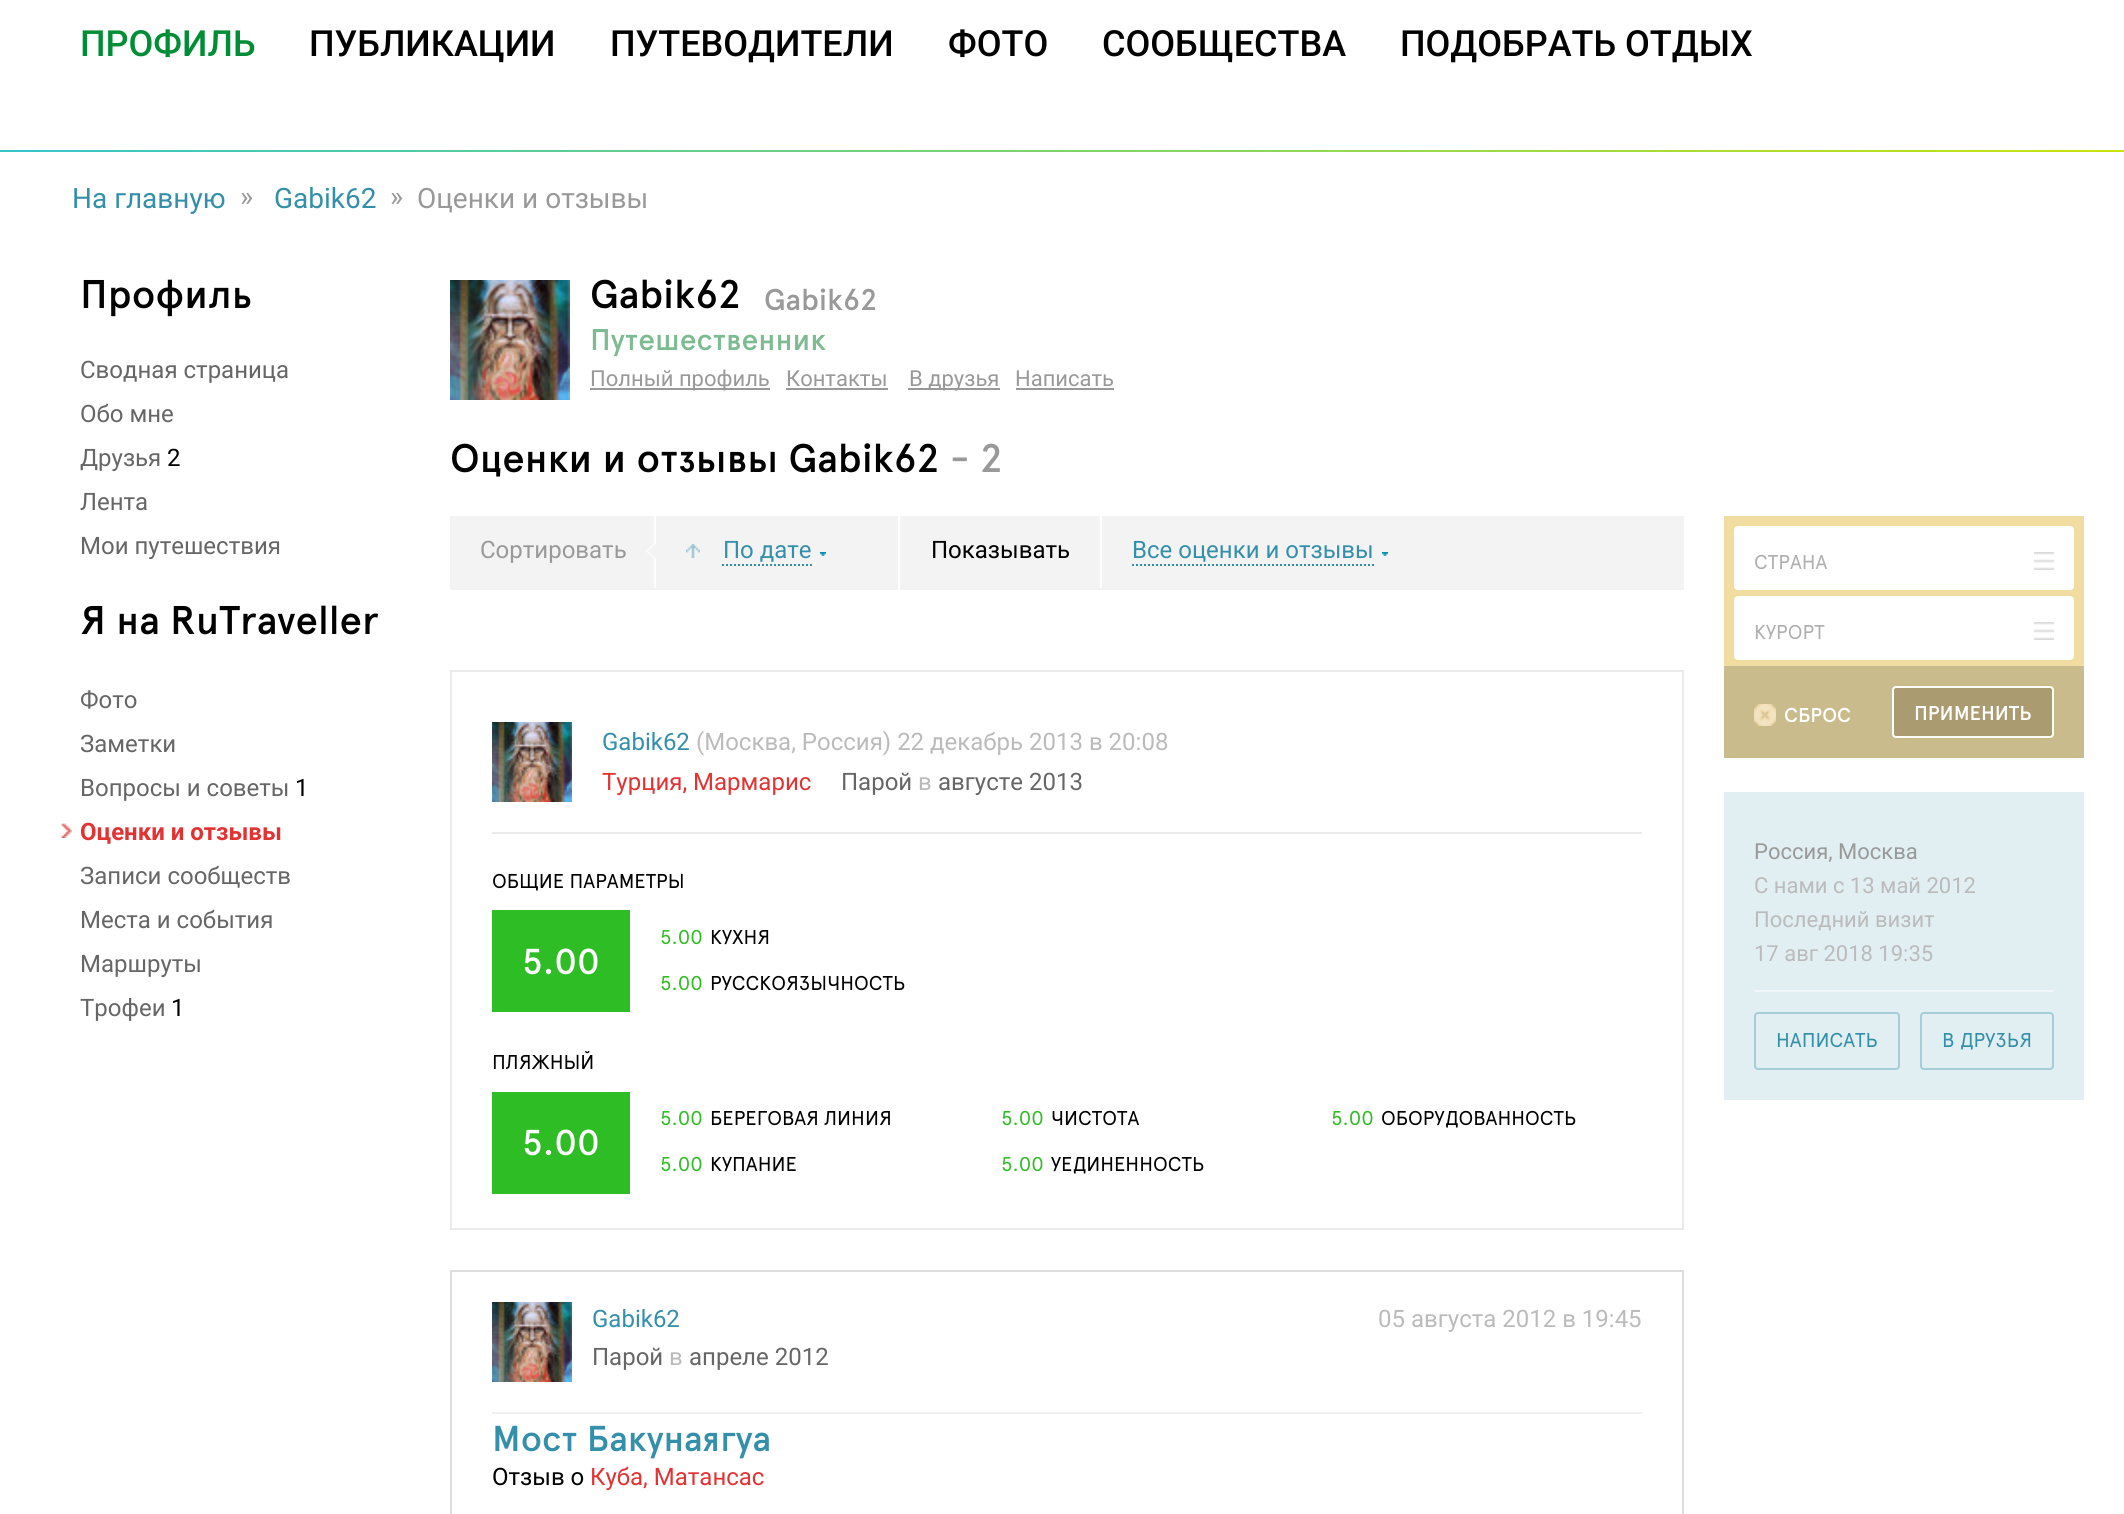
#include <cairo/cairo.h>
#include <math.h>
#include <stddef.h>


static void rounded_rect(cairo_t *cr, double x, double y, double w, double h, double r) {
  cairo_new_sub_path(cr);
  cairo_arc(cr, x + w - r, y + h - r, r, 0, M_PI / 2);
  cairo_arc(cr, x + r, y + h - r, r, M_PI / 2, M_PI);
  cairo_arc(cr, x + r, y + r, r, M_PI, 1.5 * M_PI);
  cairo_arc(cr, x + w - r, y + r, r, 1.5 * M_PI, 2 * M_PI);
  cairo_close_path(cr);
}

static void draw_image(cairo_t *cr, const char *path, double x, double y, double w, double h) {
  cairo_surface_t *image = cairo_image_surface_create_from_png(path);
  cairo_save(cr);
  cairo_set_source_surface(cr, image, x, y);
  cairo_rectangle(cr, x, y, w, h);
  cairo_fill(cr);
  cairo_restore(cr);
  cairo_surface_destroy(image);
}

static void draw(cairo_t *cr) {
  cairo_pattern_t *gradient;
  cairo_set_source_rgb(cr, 1, 1, 1);
  cairo_paint(cr);
  gradient = cairo_pattern_create_linear(0, 151, 2124, 151);
  cairo_pattern_add_color_stop_rgba(gradient, 0, 53 / 255.0, 198 / 255.0, 201 / 255.0, 1);
  cairo_pattern_add_color_stop_rgba(gradient, 1, 200 / 255.0, 226 / 255.0, 13 / 255.0, 1);
  cairo_set_source(cr, gradient);
  cairo_pattern_destroy(gradient);
  cairo_rectangle(cr, 0, 150, 2124, 2);
  cairo_fill(cr);
  draw_image(cr, "images/1.png", 61, 823, 11, 15);
  draw_image(cr, "images/2.png", 450, 280, 120, 120);
  cairo_set_source_rgb(cr, 153 / 255.0, 153 / 255.0, 153 / 255.0);
  cairo_rectangle(cr, 590, 388, 180, 2);
  cairo_fill(cr);
  cairo_rectangle(cr, 786, 388, 102, 2);
  cairo_fill(cr);
  cairo_rectangle(cr, 908, 388, 92, 2);
  cairo_fill(cr);
  cairo_rectangle(cr, 1016, 388, 98, 2);
  cairo_fill(cr);
  cairo_set_source_rgb(cr, 243 / 255.0, 243 / 255.0, 243 / 255.0);
  cairo_rectangle(cr, 450, 516, 1234, 74);
  cairo_fill(cr);
  draw_image(cr, "images/3.png", 646, 516, 10, 72);
  cairo_set_source_rgb(cr, 1, 1, 1);
  cairo_rectangle(cr, 898, 516, 2, 74);
  cairo_fill(cr);
  draw_image(cr, "images/4.png", 686, 544, 14, 14);
  draw_image(cr, "images/5.png", 820, 552, 6, 4);
  cairo_new_path(cr);
  cairo_move_to(cr, 722, 565);
  cairo_line_to(cr, 812, 565);
  cairo_set_source_rgb(cr, 52 / 255.0, 143 / 255.0, 171 / 255.0);
  cairo_set_dash(cr, (double[]){2, 2}, 2, 0);
  cairo_stroke(cr);
  cairo_set_source_rgb(cr, 1, 1, 1);
  cairo_rectangle(cr, 1100, 516, 2, 72);
  cairo_fill(cr);
  draw_image(cr, "images/5.png", 1382, 552, 6, 4);
  cairo_new_path(cr);
  cairo_move_to(cr, 1132, 565);
  cairo_line_to(cr, 1374, 565);
  cairo_set_source_rgb(cr, 52 / 255.0, 143 / 255.0, 171 / 255.0);
  cairo_stroke(cr);
  cairo_rectangle(cr, 451, 671, 1232, 558);
  cairo_set_source_rgb(cr, 235 / 255.0, 235 / 255.0, 235 / 255.0);
  cairo_set_dash(cr, NULL, 0, 0);
  cairo_stroke(cr);
  cairo_rectangle(cr, 492, 832, 1150, 2);
  cairo_fill(cr);
  draw_image(cr, "images/6.png", 492, 722, 80, 80);
  cairo_set_source_rgb(cr, 47 / 255.0, 189 / 255.0, 37 / 255.0);
  cairo_rectangle(cr, 492, 910, 138, 102);
  cairo_fill(cr);
  cairo_rectangle(cr, 492, 1092, 138, 102);
  cairo_fill(cr);
  cairo_rectangle(cr, 451, 1271, 1232, 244);
  cairo_set_source_rgb(cr, 222 / 255.0, 222 / 255.0, 222 / 255.0);
  cairo_stroke(cr);
  cairo_set_source_rgb(cr, 240 / 255.0, 240 / 255.0, 240 / 255.0);
  cairo_rectangle(cr, 492, 1412, 1150, 2);
  cairo_fill(cr);
  draw_image(cr, "images/6.png", 492, 1302, 80, 80);
  cairo_set_source_rgb(cr, 242 / 255.0, 221 / 255.0, 161 / 255.0);
  cairo_rectangle(cr, 1724, 516, 360, 150);
  cairo_fill(cr);
  cairo_set_source_rgb(cr, 1, 1, 1);
  rounded_rect(cr, 1734, 526, 340, 64, 4);
  cairo_fill(cr);
  draw_image(cr, "images/7.png", 2034, 552, 20, 18);
  rounded_rect(cr, 1734, 596, 340, 64, 4);
  cairo_fill(cr);
  draw_image(cr, "images/7.png", 2034, 622, 20, 18);
  cairo_set_source_rgb(cr, 202 / 255.0, 187 / 255.0, 140 / 255.0);
  cairo_rectangle(cr, 1724, 666, 360, 92);
  cairo_fill(cr);
  draw_image(cr, "images/8.png", 1754, 704, 22, 22);
  cairo_set_source_rgb(cr, 170 / 255.0, 155 / 255.0, 113 / 255.0);
  rounded_rect(cr, 1893, 687, 160, 50, 3);
  cairo_fill_preserve(cr);
  cairo_set_source_rgb(cr, 1, 1, 1);
  cairo_stroke(cr);
  cairo_set_source_rgb(cr, 225 / 255.0, 238 / 255.0, 242 / 255.0);
  cairo_rectangle(cr, 1724, 792, 360, 308);
  cairo_fill(cr);
  cairo_set_source_rgb(cr, 240 / 255.0, 247 / 255.0, 249 / 255.0);
  cairo_rectangle(cr, 1754, 990, 300, 2);
  cairo_fill(cr);
  rounded_rect(cr, 1755, 1013, 144, 56, 3);
  cairo_set_source_rgb(cr, 165 / 255.0, 205 / 255.0, 217 / 255.0);
  cairo_stroke(cr);
  rounded_rect(cr, 1921, 1013, 132, 56, 3);
  cairo_stroke(cr);
  cairo_select_font_face(cr, "Roboto Medium", CAIRO_FONT_SLANT_NORMAL, CAIRO_FONT_WEIGHT_NORMAL);
  cairo_set_font_size(cr, 36);
  cairo_set_source_rgb(cr, 0, 141 / 255.0, 54 / 255.0);
  cairo_move_to(cr, 80, 56);
  cairo_show_text(cr, "ПРОФИЛЬ");
  cairo_set_source_rgb(cr, 0, 0, 0);
  cairo_move_to(cr, 309, 56);
  cairo_show_text(cr, "ПУБЛИКАЦИИ");
  cairo_move_to(cr, 610, 56);
  cairo_show_text(cr, "ПУТЕВОДИТЕЛИ");
  cairo_move_to(cr, 948, 56);
  cairo_show_text(cr, "ФОТО");
  cairo_move_to(cr, 1102, 56);
  cairo_show_text(cr, "СООБЩЕСТВА");
  cairo_move_to(cr, 1400, 56);
  cairo_show_text(cr, "ПОДОБРАТЬ ОТДЫХ");
  cairo_select_font_face(cr, "Roboto", CAIRO_FONT_SLANT_NORMAL, CAIRO_FONT_WEIGHT_NORMAL);
  cairo_set_font_size(cr, 28);
  cairo_set_source_rgb(cr, 52 / 255.0, 143 / 255.0, 171 / 255.0);
  cairo_move_to(cr, 72, 208);
  cairo_show_text(cr, "На главную");
  cairo_set_source_rgb(cr, 153 / 255.0, 153 / 255.0, 153 / 255.0);
  cairo_move_to(cr, 240, 206);
  cairo_show_text(cr, "»");
  cairo_set_source_rgb(cr, 52 / 255.0, 143 / 255.0, 171 / 255.0);
  cairo_move_to(cr, 274, 208);
  cairo_show_text(cr, "Gabik62");
  cairo_set_source_rgb(cr, 153 / 255.0, 153 / 255.0, 153 / 255.0);
  cairo_move_to(cr, 390, 206);
  cairo_show_text(cr, "»");
  cairo_move_to(cr, 417, 208);
  cairo_show_text(cr, "Оценки и отзывы");
  cairo_select_font_face(cr, "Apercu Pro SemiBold", CAIRO_FONT_SLANT_NORMAL, CAIRO_FONT_WEIGHT_NORMAL);
  cairo_set_font_size(cr, 40);
  cairo_set_source_rgb(cr, 0, 0, 0);
  cairo_move_to(cr, 80, 308);
  cairo_show_text(cr, "Профиль");
  cairo_select_font_face(cr, "Roboto", CAIRO_FONT_SLANT_NORMAL, CAIRO_FONT_WEIGHT_NORMAL);
  cairo_set_font_size(cr, 24);
  cairo_set_source_rgb(cr, 102 / 255.0, 102 / 255.0, 102 / 255.0);
  cairo_move_to(cr, 80, 378);
  cairo_show_text(cr, "Сводная страница");
  cairo_move_to(cr, 80, 422);
  cairo_show_text(cr, "Обо мне");
  cairo_move_to(cr, 80, 466);
  cairo_show_text(cr, "Друзья");
  cairo_set_source_rgb(cr, 0, 0, 0);
  cairo_move_to(cr, 167, 466);
  cairo_show_text(cr, "2");
  cairo_set_source_rgb(cr, 102 / 255.0, 102 / 255.0, 102 / 255.0);
  cairo_move_to(cr, 80, 510);
  cairo_show_text(cr, "Лента");
  cairo_move_to(cr, 80, 554);
  cairo_show_text(cr, "Мои путешествия");
  cairo_select_font_face(cr, "Apercu Pro SemiBold", CAIRO_FONT_SLANT_NORMAL, CAIRO_FONT_WEIGHT_NORMAL);
  cairo_set_font_size(cr, 40);
  cairo_set_source_rgb(cr, 0, 0, 0);
  cairo_move_to(cr, 80, 634);
  cairo_show_text(cr, "Я на RuTraveller");
  cairo_select_font_face(cr, "Roboto", CAIRO_FONT_SLANT_NORMAL, CAIRO_FONT_WEIGHT_NORMAL);
  cairo_set_font_size(cr, 24);
  cairo_set_source_rgb(cr, 102 / 255.0, 102 / 255.0, 102 / 255.0);
  cairo_move_to(cr, 80, 708);
  cairo_show_text(cr, "Фото");
  cairo_move_to(cr, 80, 752);
  cairo_show_text(cr, "Заметки");
  cairo_move_to(cr, 80, 796);
  cairo_show_text(cr, "Вопросы и советы");
  cairo_set_source_rgb(cr, 0, 0, 0);
  cairo_move_to(cr, 295, 796);
  cairo_show_text(cr, "1");
  cairo_select_font_face(cr, "Roboto", CAIRO_FONT_SLANT_NORMAL, CAIRO_FONT_WEIGHT_BOLD);
  cairo_set_source_rgb(cr, 227 / 255.0, 50 / 255.0, 50 / 255.0);
  cairo_move_to(cr, 80, 840);
  cairo_show_text(cr, "Оценки и отзывы");
  cairo_select_font_face(cr, "Roboto", CAIRO_FONT_SLANT_NORMAL, CAIRO_FONT_WEIGHT_NORMAL);
  cairo_set_source_rgb(cr, 102 / 255.0, 102 / 255.0, 102 / 255.0);
  cairo_move_to(cr, 80, 884);
  cairo_show_text(cr, "Записи сообществ");
  cairo_move_to(cr, 80, 928);
  cairo_show_text(cr, "Места и события");
  cairo_move_to(cr, 80, 972);
  cairo_show_text(cr, "Маршруты");
  cairo_move_to(cr, 80, 1016);
  cairo_show_text(cr, "Трофеи");
  cairo_set_source_rgb(cr, 0, 0, 0);
  cairo_move_to(cr, 171, 1016);
  cairo_show_text(cr, "1");
  cairo_select_font_face(cr, "Apercu Pro SemiBold", CAIRO_FONT_SLANT_NORMAL, CAIRO_FONT_WEIGHT_NORMAL);
  cairo_set_font_size(cr, 40);
  cairo_move_to(cr, 590, 308);
  cairo_show_text(cr, "Gabik62");
  cairo_set_font_size(cr, 30);
  cairo_set_source_rgb(cr, 153 / 255.0, 153 / 255.0, 153 / 255.0);
  cairo_move_to(cr, 764, 310);
  cairo_show_text(cr, "Gabik62");
  cairo_set_source_rgb(cr, 126 / 255.0, 187 / 255.0, 147 / 255.0);
  cairo_move_to(cr, 590, 350);
  cairo_show_text(cr, "Путешественник");
  cairo_select_font_face(cr, "Roboto", CAIRO_FONT_SLANT_NORMAL, CAIRO_FONT_WEIGHT_NORMAL);
  cairo_set_font_size(cr, 22);
  cairo_set_source_rgb(cr, 153 / 255.0, 153 / 255.0, 153 / 255.0);
  cairo_move_to(cr, 590, 386);
  cairo_show_text(cr, "Полный профиль");
  cairo_move_to(cr, 786, 386);
  cairo_show_text(cr, "Контакты");
  cairo_move_to(cr, 909, 386);
  cairo_show_text(cr, "В друзья");
  cairo_move_to(cr, 1015, 386);
  cairo_show_text(cr, "Написать");
  cairo_select_font_face(cr, "Apercu Pro SemiBold", CAIRO_FONT_SLANT_NORMAL, CAIRO_FONT_WEIGHT_NORMAL);
  cairo_set_font_size(cr, 40);
  cairo_set_source_rgb(cr, 0, 0, 0);
  cairo_move_to(cr, 450, 472);
  cairo_show_text(cr, "Оценки и отзывы Gabik62");
  cairo_set_source_rgb(cr, 153 / 255.0, 153 / 255.0, 153 / 255.0);
  cairo_move_to(cr, 950, 472);
  cairo_show_text(cr, "- 2");
  cairo_select_font_face(cr, "Roboto", CAIRO_FONT_SLANT_NORMAL, CAIRO_FONT_WEIGHT_NORMAL);
  cairo_set_font_size(cr, 24);
  cairo_move_to(cr, 480, 558);
  cairo_show_text(cr, "Сортировать");
  cairo_set_source_rgb(cr, 52 / 255.0, 143 / 255.0, 171 / 255.0);
  cairo_move_to(cr, 723, 558);
  cairo_show_text(cr, "По дате");
  cairo_set_source_rgb(cr, 0, 0, 0);
  cairo_move_to(cr, 931, 558);
  cairo_show_text(cr, "Показывать");
  cairo_set_source_rgb(cr, 52 / 255.0, 143 / 255.0, 171 / 255.0);
  cairo_move_to(cr, 1132, 558);
  cairo_show_text(cr, "Все оценки и отзывы");
  cairo_move_to(cr, 602, 750);
  cairo_show_text(cr, "Gabik62");
  cairo_set_source_rgb(cr, 187 / 255.0, 187 / 255.0, 187 / 255.0);
  cairo_move_to(cr, 696, 750);
  cairo_show_text(cr, "(Москва, Россия) 22 декабрь 2013 в 20:08");
  cairo_set_source_rgb(cr, 227 / 255.0, 50 / 255.0, 50 / 255.0);
  cairo_move_to(cr, 602, 790);
  cairo_show_text(cr, "Турция, Мармарис");
  cairo_set_source_rgb(cr, 102 / 255.0, 102 / 255.0, 102 / 255.0);
  cairo_move_to(cr, 841, 790);
  cairo_show_text(cr, "Парой");
  cairo_set_source_rgb(cr, 187 / 255.0, 187 / 255.0, 187 / 255.0);
  cairo_move_to(cr, 918, 790);
  cairo_show_text(cr, "в");
  cairo_set_source_rgb(cr, 102 / 255.0, 102 / 255.0, 102 / 255.0);
  cairo_move_to(cr, 938, 790);
  cairo_show_text(cr, "августе 2013");
  cairo_select_font_face(cr, "Apercu Pro", CAIRO_FONT_SLANT_NORMAL, CAIRO_FONT_WEIGHT_NORMAL);
  cairo_set_font_size(cr, 20);
  cairo_set_source_rgb(cr, 0, 0, 0);
  cairo_move_to(cr, 492, 888);
  cairo_show_text(cr, "ОБЩИЕ ПАРАМЕТРЫ");
  cairo_select_font_face(cr, "Apercu Pro SemiBold", CAIRO_FONT_SLANT_NORMAL, CAIRO_FONT_WEIGHT_NORMAL);
  cairo_set_font_size(cr, 36);
  cairo_set_source_rgb(cr, 1, 1, 1);
  cairo_move_to(cr, 522, 974);
  cairo_show_text(cr, "5.00");
  cairo_select_font_face(cr, "Apercu Pro", CAIRO_FONT_SLANT_NORMAL, CAIRO_FONT_WEIGHT_NORMAL);
  cairo_set_font_size(cr, 20);
  cairo_set_source_rgb(cr, 47 / 255.0, 189 / 255.0, 37 / 255.0);
  cairo_move_to(cr, 660, 944);
  cairo_show_text(cr, "5.00");
  cairo_set_source_rgb(cr, 0, 0, 0);
  cairo_move_to(cr, 710, 944);
  cairo_show_text(cr, "КУХНЯ");
  cairo_set_source_rgb(cr, 47 / 255.0, 189 / 255.0, 37 / 255.0);
  cairo_move_to(cr, 660, 990);
  cairo_show_text(cr, "5.00");
  cairo_set_source_rgb(cr, 0, 0, 0);
  cairo_move_to(cr, 710, 990);
  cairo_show_text(cr, "РУССКОЯЗЫЧНОСТЬ");
  cairo_move_to(cr, 492, 1069);
  cairo_show_text(cr, "ПЛЯЖНЫЙ");
  cairo_set_source_rgb(cr, 47 / 255.0, 189 / 255.0, 37 / 255.0);
  cairo_move_to(cr, 660, 1125);
  cairo_show_text(cr, "5.00");
  cairo_set_source_rgb(cr, 0, 0, 0);
  cairo_move_to(cr, 710, 1125);
  cairo_show_text(cr, "БЕРЕГОВАЯ ЛИНИЯ");
  cairo_set_source_rgb(cr, 47 / 255.0, 189 / 255.0, 37 / 255.0);
  cairo_move_to(cr, 660, 1171);
  cairo_show_text(cr, "5.00");
  cairo_set_source_rgb(cr, 0, 0, 0);
  cairo_move_to(cr, 710, 1171);
  cairo_show_text(cr, "КУПАНИЕ");
  cairo_set_source_rgb(cr, 47 / 255.0, 189 / 255.0, 37 / 255.0);
  cairo_move_to(cr, 1001, 1125);
  cairo_show_text(cr, "5.00");
  cairo_set_source_rgb(cr, 0, 0, 0);
  cairo_move_to(cr, 1051, 1125);
  cairo_show_text(cr, "ЧИСТОТА");
  cairo_set_source_rgb(cr, 47 / 255.0, 189 / 255.0, 37 / 255.0);
  cairo_move_to(cr, 1001, 1171);
  cairo_show_text(cr, "5.00");
  cairo_set_source_rgb(cr, 0, 0, 0);
  cairo_move_to(cr, 1051, 1171);
  cairo_show_text(cr, "УЕДИНЕННОСТЬ");
  cairo_set_source_rgb(cr, 47 / 255.0, 189 / 255.0, 37 / 255.0);
  cairo_move_to(cr, 1331, 1125);
  cairo_show_text(cr, "5.00");
  cairo_set_source_rgb(cr, 0, 0, 0);
  cairo_move_to(cr, 1381, 1125);
  cairo_show_text(cr, "ОБОРУДОВАННОСТЬ");
  cairo_select_font_face(cr, "Apercu Pro SemiBold", CAIRO_FONT_SLANT_NORMAL, CAIRO_FONT_WEIGHT_NORMAL);
  cairo_set_font_size(cr, 36);
  cairo_set_source_rgb(cr, 1, 1, 1);
  cairo_move_to(cr, 522, 1155);
  cairo_show_text(cr, "5.00");
  cairo_select_font_face(cr, "Roboto", CAIRO_FONT_SLANT_NORMAL, CAIRO_FONT_WEIGHT_NORMAL);
  cairo_set_font_size(cr, 24);
  cairo_set_source_rgb(cr, 52 / 255.0, 143 / 255.0, 171 / 255.0);
  cairo_move_to(cr, 592, 1327);
  cairo_show_text(cr, "Gabik62");
  cairo_set_source_rgb(cr, 102 / 255.0, 102 / 255.0, 102 / 255.0);
  cairo_move_to(cr, 592, 1365);
  cairo_show_text(cr, "Парой");
  cairo_set_source_rgb(cr, 187 / 255.0, 187 / 255.0, 187 / 255.0);
  cairo_move_to(cr, 669, 1365);
  cairo_show_text(cr, "в");
  cairo_set_source_rgb(cr, 102 / 255.0, 102 / 255.0, 102 / 255.0);
  cairo_move_to(cr, 689, 1365);
  cairo_show_text(cr, "апреле 2012");
  cairo_set_source_rgb(cr, 187 / 255.0, 187 / 255.0, 187 / 255.0);
  cairo_move_to(cr, 1378, 1327);
  cairo_show_text(cr, "05 августа 2012 в 19:45");
  cairo_select_font_face(cr, "Apercu Pro SemiBold", CAIRO_FONT_SLANT_NORMAL, CAIRO_FONT_WEIGHT_NORMAL);
  cairo_set_font_size(cr, 36);
  cairo_set_source_rgb(cr, 52 / 255.0, 143 / 255.0, 171 / 255.0);
  cairo_move_to(cr, 492, 1451);
  cairo_show_text(cr, "Мост Бакунаягуа");
  cairo_select_font_face(cr, "Roboto", CAIRO_FONT_SLANT_NORMAL, CAIRO_FONT_WEIGHT_NORMAL);
  cairo_set_font_size(cr, 24);
  cairo_set_source_rgb(cr, 0, 0, 0);
  cairo_move_to(cr, 492, 1485);
  cairo_show_text(cr, "Отзыв о");
  cairo_set_source_rgb(cr, 227 / 255.0, 50 / 255.0, 50 / 255.0);
  cairo_move_to(cr, 590, 1485);
  cairo_show_text(cr, "Куба, Матансас");
  cairo_select_font_face(cr, "Apercu Pro", CAIRO_FONT_SLANT_NORMAL, CAIRO_FONT_WEIGHT_NORMAL);
  cairo_set_font_size(cr, 20);
  cairo_set_source_rgb(cr, 175 / 255.0, 175 / 255.0, 175 / 255.0);
  cairo_move_to(cr, 1754, 569);
  cairo_show_text(cr, "СТРАНА");
  cairo_move_to(cr, 1754, 639);
  cairo_show_text(cr, "КУРОРТ");
  cairo_select_font_face(cr, "Apercu Pro SemiBold", CAIRO_FONT_SLANT_NORMAL, CAIRO_FONT_WEIGHT_NORMAL);
  cairo_set_source_rgb(cr, 1, 1, 1);
  cairo_move_to(cr, 1784, 722);
  cairo_show_text(cr, "СБРОС");
  cairo_move_to(cr, 1914, 720);
  cairo_show_text(cr, "ПРИМЕНИТЬ");
  cairo_select_font_face(cr, "Roboto", CAIRO_FONT_SLANT_NORMAL, CAIRO_FONT_WEIGHT_NORMAL);
  cairo_set_font_size(cr, 22);
  cairo_set_source_rgb(cr, 153 / 255.0, 153 / 255.0, 153 / 255.0);
  cairo_move_to(cr, 1754, 859);
  cairo_show_text(cr, "Россия, Москва");
  cairo_set_source_rgb(cr, 187 / 255.0, 187 / 255.0, 187 / 255.0);
  cairo_move_to(cr, 1754, 893);
  cairo_show_text(cr, "С нами с 13 май 2012");
  cairo_move_to(cr, 1754, 927);
  cairo_show_text(cr, "Последний визит");
  cairo_move_to(cr, 1754, 961);
  cairo_show_text(cr, "17 авг 2018 19:35");
  cairo_select_font_face(cr, "Apercu Pro", CAIRO_FONT_SLANT_NORMAL, CAIRO_FONT_WEIGHT_NORMAL);
  cairo_set_font_size(cr, 20);
  cairo_set_source_rgb(cr, 52 / 255.0, 143 / 255.0, 171 / 255.0);
  cairo_move_to(cr, 1776, 1047);
  cairo_show_text(cr, "НАПИСАТЬ");
  cairo_move_to(cr, 1942, 1047);
  cairo_show_text(cr, "В ДРУЗЬЯ");
}

int main(void) {
  cairo_surface_t *surface = cairo_image_surface_create(CAIRO_FORMAT_RGB24, 2124, 1514);
  cairo_t *cr = cairo_create(surface);
  cairo_font_options_t *options = cairo_font_options_create();
  cairo_font_options_set_hint_metrics(options, CAIRO_HINT_METRICS_OFF);
  cairo_font_options_set_hint_style(options, CAIRO_HINT_STYLE_NONE);
  cairo_set_font_options(cr, options);
  cairo_set_miter_limit(cr, 4);
  draw(cr);
  cairo_surface_write_to_png(surface, "out.png");
  cairo_font_options_destroy(options);
  cairo_destroy(cr);
  cairo_surface_destroy(surface);
  return 0;
}
